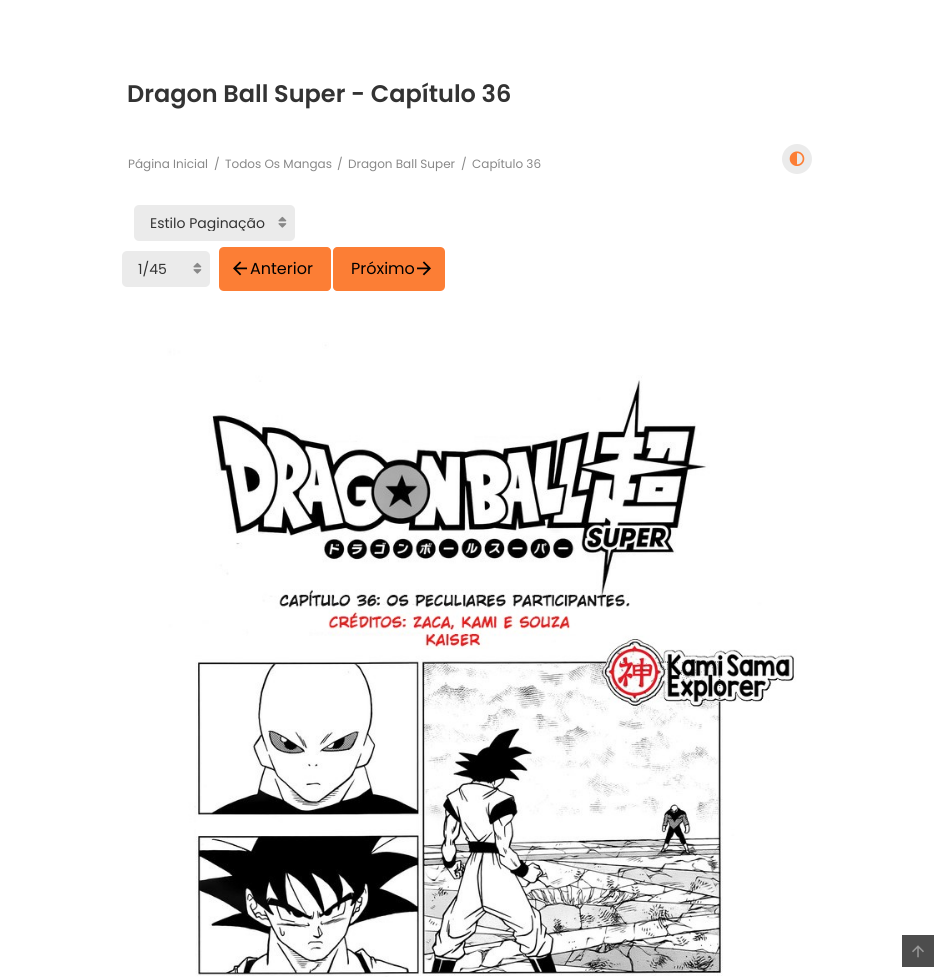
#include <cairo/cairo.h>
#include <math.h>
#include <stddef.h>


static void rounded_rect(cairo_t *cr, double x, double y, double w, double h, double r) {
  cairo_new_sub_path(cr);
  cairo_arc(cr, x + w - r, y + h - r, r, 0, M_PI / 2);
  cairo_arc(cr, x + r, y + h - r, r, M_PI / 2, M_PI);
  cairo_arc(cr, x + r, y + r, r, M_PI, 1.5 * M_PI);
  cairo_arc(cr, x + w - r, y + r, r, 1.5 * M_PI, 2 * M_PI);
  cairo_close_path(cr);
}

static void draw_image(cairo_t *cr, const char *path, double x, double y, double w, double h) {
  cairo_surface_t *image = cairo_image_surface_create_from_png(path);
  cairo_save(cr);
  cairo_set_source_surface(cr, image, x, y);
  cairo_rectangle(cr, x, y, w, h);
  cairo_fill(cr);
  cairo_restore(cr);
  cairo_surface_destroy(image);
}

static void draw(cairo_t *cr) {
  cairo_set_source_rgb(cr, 1, 1, 1);
  cairo_paint(cr);
  cairo_set_source_rgb(cr, 235 / 255.0, 235 / 255.0, 235 / 255.0);
  cairo_arc(cr, 797, 159, 15, 0, 2 * M_PI);
  cairo_fill(cr);
  draw_image(cr, "images/1.png", 789, 151, 16, 15);
  rounded_rect(cr, 134, 205, 161, 36, 5);
  cairo_fill(cr);
  draw_image(cr, "images/2.png", 278, 216, 9, 12);
  rounded_rect(cr, 122, 251, 88, 36, 5);
  cairo_fill(cr);
  draw_image(cr, "images/2.png", 193, 262, 9, 12);
  cairo_set_source_rgb(cr, 252 / 255.0, 126 / 255.0, 53 / 255.0);
  cairo_new_path(cr);
  cairo_move_to(cr, 224, 247);
  cairo_line_to(cr, 327, 247);
  cairo_curve_to(cr, 329, 247, 331, 249, 331, 251);
  cairo_line_to(cr, 331, 287);
  cairo_curve_to(cr, 331, 289, 329, 291, 327, 291);
  cairo_line_to(cr, 224, 291);
  cairo_curve_to(cr, 221, 291, 219, 289, 219, 286);
  cairo_line_to(cr, 219, 252);
  cairo_curve_to(cr, 219, 249, 221, 247, 224, 247);
  cairo_close_path(cr);
  cairo_fill(cr);
  draw_image(cr, "images/3.png", 233, 261, 15, 15);
  cairo_new_path(cr);
  cairo_move_to(cr, 337, 247);
  cairo_line_to(cr, 440, 247);
  cairo_curve_to(cr, 443, 247, 445, 249, 445, 252);
  cairo_line_to(cr, 445, 286);
  cairo_curve_to(cr, 445, 289, 443, 291, 440, 291);
  cairo_line_to(cr, 337, 291);
  cairo_curve_to(cr, 335, 291, 333, 289, 333, 287);
  cairo_line_to(cr, 333, 251);
  cairo_curve_to(cr, 333, 249, 335, 247, 337, 247);
  cairo_close_path(cr);
  cairo_fill(cr);
  draw_image(cr, "images/4.png", 417, 261, 14, 15);
  draw_image(cr, "images/5.png", 142, 342, 660, 635);
  cairo_set_source_rgb(cr, 77 / 255.0, 77 / 255.0, 77 / 255.0);
  cairo_rectangle(cr, 902, 935, 32, 32);
  cairo_fill(cr);
  draw_image(cr, "images/6.png", 912, 945, 12, 13);
  cairo_select_font_face(cr, "Poppins SemiBold", CAIRO_FONT_SLANT_NORMAL, CAIRO_FONT_WEIGHT_NORMAL);
  cairo_set_font_size(cr, 24);
  cairo_set_source_rgb(cr, 51 / 255.0, 51 / 255.0, 51 / 255.0);
  cairo_move_to(cr, 127, 102);
  cairo_show_text(cr, "Dragon Ball Super - Capítulo 36");
  cairo_select_font_face(cr, "Poppins", CAIRO_FONT_SLANT_NORMAL, CAIRO_FONT_WEIGHT_NORMAL);
  cairo_set_font_size(cr, 12);
  cairo_set_source_rgb(cr, 136 / 255.0, 136 / 255.0, 136 / 255.0);
  cairo_move_to(cr, 128, 168);
  cairo_show_text(cr, "Página Inicial");
  cairo_move_to(cr, 214, 168);
  cairo_show_text(cr, "/");
  cairo_move_to(cr, 225, 168);
  cairo_show_text(cr, "Todos Os Mangas");
  cairo_move_to(cr, 337, 168);
  cairo_show_text(cr, "/");
  cairo_move_to(cr, 348, 168);
  cairo_show_text(cr, "Dragon Ball Super");
  cairo_move_to(cr, 461, 168);
  cairo_show_text(cr, "/");
  cairo_move_to(cr, 472, 168);
  cairo_show_text(cr, "Capítulo 36");
  cairo_save(cr);
  cairo_rectangle(cr, 150, 215, 115, 16);
  cairo_clip(cr);
  cairo_set_font_size(cr, 14);
  cairo_set_source_rgb(cr, 51 / 255.0, 51 / 255.0, 51 / 255.0);
  cairo_move_to(cr, 150, 228);
  cairo_show_text(cr, "Estilo Paginação");
  cairo_restore(cr);
  cairo_set_font_size(cr, 14);
  cairo_set_source_rgb(cr, 51 / 255.0, 51 / 255.0, 51 / 255.0);
  cairo_move_to(cr, 138, 274);
  cairo_show_text(cr, "1/45");
  cairo_set_font_size(cr, 16);
  cairo_set_source_rgb(cr, 0, 0, 0);
  cairo_move_to(cr, 250, 274);
  cairo_show_text(cr, "Anterior");
  cairo_move_to(cr, 351, 274);
  cairo_show_text(cr, "Próximo");
}

int main(void) {
  cairo_surface_t *surface = cairo_image_surface_create(CAIRO_FORMAT_RGB24, 944, 977);
  cairo_t *cr = cairo_create(surface);
  cairo_font_options_t *options = cairo_font_options_create();
  cairo_font_options_set_hint_metrics(options, CAIRO_HINT_METRICS_OFF);
  cairo_font_options_set_hint_style(options, CAIRO_HINT_STYLE_NONE);
  cairo_set_font_options(cr, options);
  cairo_set_miter_limit(cr, 4);
  draw(cr);
  cairo_surface_write_to_png(surface, "out.png");
  cairo_font_options_destroy(options);
  cairo_destroy(cr);
  cairo_surface_destroy(surface);
  return 0;
}
